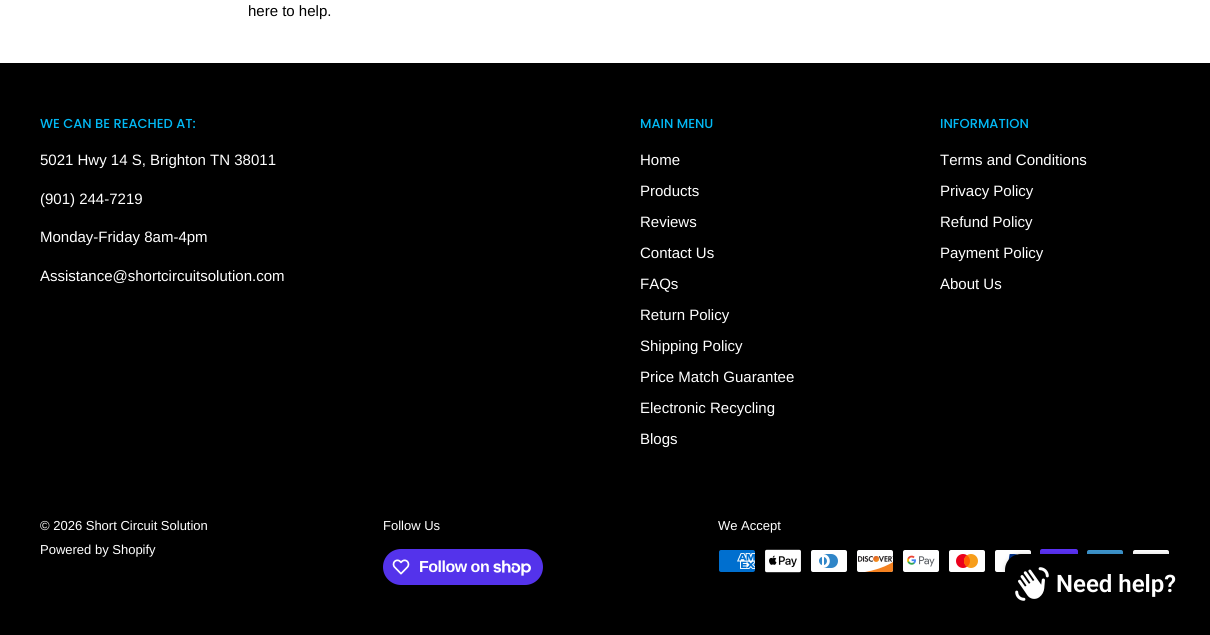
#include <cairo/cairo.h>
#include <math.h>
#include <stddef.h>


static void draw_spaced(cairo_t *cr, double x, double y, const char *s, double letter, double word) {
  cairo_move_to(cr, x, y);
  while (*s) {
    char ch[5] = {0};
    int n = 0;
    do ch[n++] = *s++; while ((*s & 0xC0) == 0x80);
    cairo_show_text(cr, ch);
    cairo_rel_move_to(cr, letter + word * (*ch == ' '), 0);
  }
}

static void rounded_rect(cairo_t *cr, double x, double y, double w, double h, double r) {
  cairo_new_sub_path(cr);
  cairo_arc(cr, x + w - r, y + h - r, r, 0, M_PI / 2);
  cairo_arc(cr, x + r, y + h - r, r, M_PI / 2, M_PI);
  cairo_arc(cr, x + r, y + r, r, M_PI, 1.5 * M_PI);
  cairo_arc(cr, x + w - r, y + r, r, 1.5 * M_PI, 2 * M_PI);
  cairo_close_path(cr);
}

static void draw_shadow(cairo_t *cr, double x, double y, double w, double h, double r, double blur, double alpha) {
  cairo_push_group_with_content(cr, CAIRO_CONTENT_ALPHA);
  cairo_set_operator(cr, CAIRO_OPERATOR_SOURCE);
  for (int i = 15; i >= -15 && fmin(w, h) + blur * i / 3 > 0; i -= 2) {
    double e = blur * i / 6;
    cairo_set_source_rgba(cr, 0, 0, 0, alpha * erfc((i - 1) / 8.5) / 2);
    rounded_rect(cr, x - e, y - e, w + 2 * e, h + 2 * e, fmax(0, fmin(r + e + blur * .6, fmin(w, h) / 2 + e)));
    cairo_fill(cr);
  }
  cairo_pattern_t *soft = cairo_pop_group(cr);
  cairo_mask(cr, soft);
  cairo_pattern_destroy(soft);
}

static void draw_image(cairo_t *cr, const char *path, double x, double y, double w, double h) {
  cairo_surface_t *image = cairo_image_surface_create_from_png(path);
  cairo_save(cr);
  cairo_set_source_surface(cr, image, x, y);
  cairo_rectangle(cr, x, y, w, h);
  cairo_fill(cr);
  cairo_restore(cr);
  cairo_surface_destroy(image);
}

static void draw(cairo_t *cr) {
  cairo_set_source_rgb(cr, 1, 1, 1);
  cairo_paint(cr);
  cairo_set_source_rgb(cr, 0, 0, 0);
  cairo_rectangle(cr, 0, 63, 1210, 572);
  cairo_fill(cr);
  cairo_set_source_rgb(cr, 84 / 255.0, 51 / 255.0, 235 / 255.0);
  rounded_rect(cr, 383, 549, 160, 36, 18);
  cairo_fill(cr);
  draw_image(cr, "images/1.png", 392, 559, 18, 16);
  draw_image(cr, "images/2.png", 493, 560, 38, 16);
  draw_image(cr, "images/3.png", 719, 550, 36, 22);
  draw_image(cr, "images/4.png", 765, 549, 36, 24);
  draw_image(cr, "images/5.png", 811, 550, 36, 22);
  draw_image(cr, "images/6.png", 857, 550, 37, 22);
  draw_image(cr, "images/7.png", 903, 550, 36, 22);
  draw_image(cr, "images/8.png", 949, 550, 36, 22);
  draw_image(cr, "images/9.png", 995, 550, 36, 22);
  draw_image(cr, "images/10.png", 1040, 549, 38, 5);
  draw_image(cr, "images/11.png", 1087, 550, 36, 4);
  draw_image(cr, "images/12.png", 1133, 550, 36, 4);
  cairo_set_source_rgb(cr, 0, 0, 0);
  draw_shadow(cr, 1005, 554, 183, 60, 16, 2.5, 0.15);
  cairo_set_source_rgb(cr, 0, 0, 0);
  rounded_rect(cr, 1005, 554, 183, 60, 16);
  cairo_fill(cr);
  draw_image(cr, "images/13.png", 1015, 567, 34, 34);
  cairo_select_font_face(cr, "Arimo", CAIRO_FONT_SLANT_NORMAL, CAIRO_FONT_WEIGHT_NORMAL);
  cairo_set_font_size(cr, 15);
  cairo_move_to(cr, 248, 16);
  cairo_show_text(cr, "here to help.");
  cairo_select_font_face(cr, "Poppins Medium", CAIRO_FONT_SLANT_NORMAL, CAIRO_FONT_WEIGHT_NORMAL);
  cairo_set_font_size(cr, 13);
  cairo_set_source_rgb(cr, 2 / 255.0, 185 / 255.0, 245 / 255.0);
  cairo_move_to(cr, 40, 128);
  cairo_show_text(cr, "WE CAN BE REACHED AT:");
  cairo_select_font_face(cr, "Arimo", CAIRO_FONT_SLANT_NORMAL, CAIRO_FONT_WEIGHT_NORMAL);
  cairo_set_font_size(cr, 15);
  cairo_set_source_rgb(cr, 1, 1, 1);
  cairo_move_to(cr, 40, 165);
  cairo_show_text(cr, "5021 Hwy 14 S, Brighton TN 38011");
  cairo_move_to(cr, 40, 204);
  cairo_show_text(cr, "(901) 244-7219");
  cairo_move_to(cr, 40, 242);
  cairo_show_text(cr, "Monday-Friday 8am-4pm");
  cairo_move_to(cr, 40, 281);
  cairo_show_text(cr, "Assistance@shortcircuitsolution.com");
  cairo_select_font_face(cr, "Poppins Medium", CAIRO_FONT_SLANT_NORMAL, CAIRO_FONT_WEIGHT_NORMAL);
  cairo_set_font_size(cr, 13);
  cairo_set_source_rgb(cr, 2 / 255.0, 185 / 255.0, 245 / 255.0);
  cairo_move_to(cr, 640, 128);
  cairo_show_text(cr, "MAIN MENU");
  cairo_select_font_face(cr, "Arimo", CAIRO_FONT_SLANT_NORMAL, CAIRO_FONT_WEIGHT_NORMAL);
  cairo_set_font_size(cr, 15);
  cairo_set_source_rgb(cr, 1, 1, 1);
  cairo_move_to(cr, 640, 165);
  cairo_show_text(cr, "Home");
  cairo_move_to(cr, 640, 196);
  cairo_show_text(cr, "Products");
  cairo_move_to(cr, 640, 227);
  cairo_show_text(cr, "Reviews");
  cairo_move_to(cr, 640, 258);
  cairo_show_text(cr, "Contact Us");
  cairo_move_to(cr, 640, 289);
  cairo_show_text(cr, "FAQs");
  cairo_move_to(cr, 640, 320);
  cairo_show_text(cr, "Return Policy");
  cairo_move_to(cr, 640, 351);
  cairo_show_text(cr, "Shipping Policy");
  cairo_move_to(cr, 640, 382);
  cairo_show_text(cr, "Price Match Guarantee");
  cairo_move_to(cr, 640, 413);
  cairo_show_text(cr, "Electronic Recycling");
  cairo_move_to(cr, 640, 444);
  cairo_show_text(cr, "Blogs");
  cairo_select_font_face(cr, "Poppins Medium", CAIRO_FONT_SLANT_NORMAL, CAIRO_FONT_WEIGHT_NORMAL);
  cairo_set_font_size(cr, 13);
  cairo_set_source_rgb(cr, 2 / 255.0, 185 / 255.0, 245 / 255.0);
  cairo_move_to(cr, 940, 128);
  cairo_show_text(cr, "INFORMATION");
  cairo_select_font_face(cr, "Arimo", CAIRO_FONT_SLANT_NORMAL, CAIRO_FONT_WEIGHT_NORMAL);
  cairo_set_font_size(cr, 15);
  cairo_set_source_rgb(cr, 1, 1, 1);
  cairo_move_to(cr, 940, 165);
  cairo_show_text(cr, "Terms and Conditions");
  cairo_move_to(cr, 940, 196);
  cairo_show_text(cr, "Privacy Policy");
  cairo_move_to(cr, 940, 227);
  cairo_show_text(cr, "Refund Policy");
  cairo_move_to(cr, 940, 258);
  cairo_show_text(cr, "Payment Policy");
  cairo_move_to(cr, 940, 289);
  cairo_show_text(cr, "About Us");
  cairo_set_font_size(cr, 13);
  cairo_move_to(cr, 40, 530);
  cairo_show_text(cr, "© 2026 Short Circuit Solution");
  cairo_move_to(cr, 40, 554);
  cairo_show_text(cr, "Powered by Shopify");
  cairo_move_to(cr, 383, 530);
  cairo_show_text(cr, "Follow Us");
  cairo_select_font_face(cr, "Liberation Sans", CAIRO_FONT_SLANT_NORMAL, CAIRO_FONT_WEIGHT_BOLD);
  cairo_set_font_size(cr, 16);
  draw_spaced(cr, 419, 572, "Follow on", -0.5, 0);
  cairo_select_font_face(cr, "Arimo", CAIRO_FONT_SLANT_NORMAL, CAIRO_FONT_WEIGHT_NORMAL);
  cairo_set_font_size(cr, 13);
  cairo_move_to(cr, 718, 530);
  cairo_show_text(cr, "We Accept");
  cairo_select_font_face(cr, "Roboto SemiBold", CAIRO_FONT_SLANT_NORMAL, CAIRO_FONT_WEIGHT_NORMAL);
  cairo_set_font_size(cr, 24);
  cairo_move_to(cr, 1056, 592);
  cairo_show_text(cr, "Need help?");
}

int main(void) {
  cairo_surface_t *surface = cairo_image_surface_create(CAIRO_FORMAT_RGB24, 1210, 635);
  cairo_t *cr = cairo_create(surface);
  cairo_font_options_t *options = cairo_font_options_create();
  cairo_font_options_set_hint_metrics(options, CAIRO_HINT_METRICS_OFF);
  cairo_font_options_set_hint_style(options, CAIRO_HINT_STYLE_NONE);
  cairo_set_font_options(cr, options);
  cairo_set_miter_limit(cr, 4);
  draw(cr);
  cairo_surface_write_to_png(surface, "out.png");
  cairo_font_options_destroy(options);
  cairo_destroy(cr);
  cairo_surface_destroy(surface);
  return 0;
}
